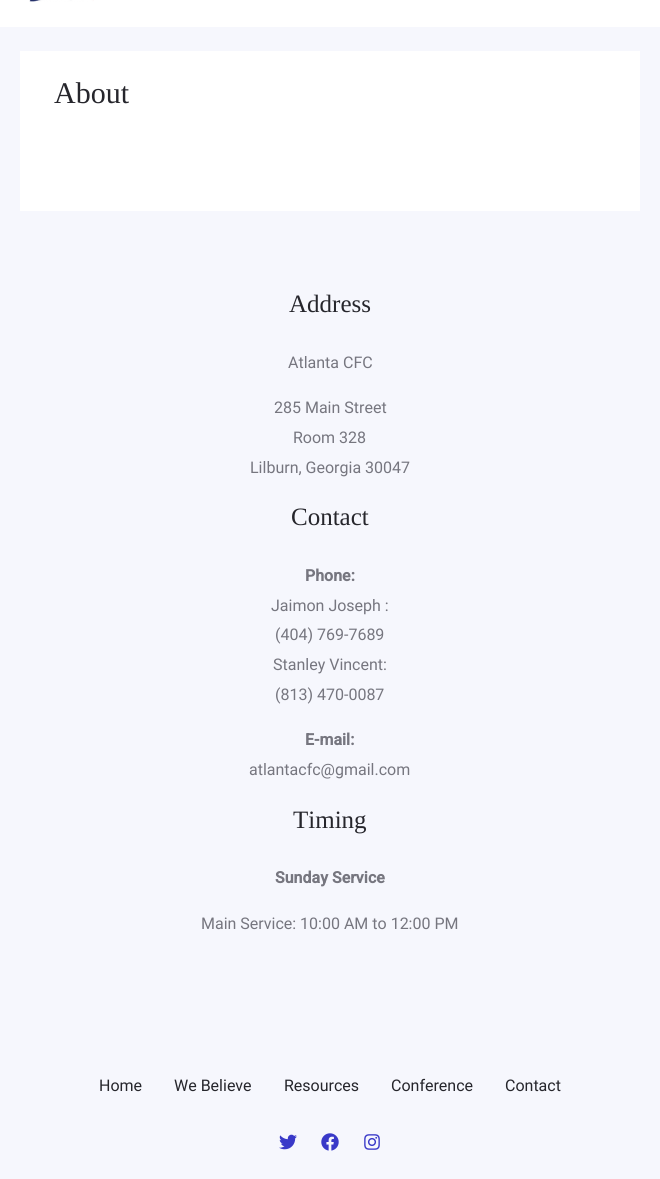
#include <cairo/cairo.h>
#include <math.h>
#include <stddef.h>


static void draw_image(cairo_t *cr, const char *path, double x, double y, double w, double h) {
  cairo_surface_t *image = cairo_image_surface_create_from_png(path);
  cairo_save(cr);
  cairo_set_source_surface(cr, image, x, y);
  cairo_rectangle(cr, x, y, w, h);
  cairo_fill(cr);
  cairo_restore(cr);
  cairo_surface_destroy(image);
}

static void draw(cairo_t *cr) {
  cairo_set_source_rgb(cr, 246 / 255.0, 247 / 255.0, 253 / 255.0);
  cairo_paint(cr);
  cairo_set_source_rgb(cr, 1, 1, 1);
  cairo_rectangle(cr, 0, 0, 660, 27);
  cairo_fill(cr);
  draw_image(cr, "images/1.png", 29, 0, 65, 2);
  cairo_rectangle(cr, 20, 51, 620, 160);
  cairo_fill(cr);
  draw_image(cr, "images/2.png", 279, 1134, 18, 16);
  draw_image(cr, "images/3.png", 321, 1133, 18, 18);
  draw_image(cr, "images/4.png", 364, 1134, 16, 16);
  cairo_select_font_face(cr, "Liberation Serif", CAIRO_FONT_SLANT_NORMAL, CAIRO_FONT_WEIGHT_NORMAL);
  cairo_set_font_size(cr, 30);
  cairo_set_source_rgb(cr, 38 / 255.0, 38 / 255.0, 44 / 255.0);
  cairo_move_to(cr, 54, 103);
  cairo_show_text(cr, "About");
  cairo_set_font_size(cr, 25);
  cairo_move_to(cr, 289, 312);
  cairo_show_text(cr, "Address");
  cairo_select_font_face(cr, "Roboto", CAIRO_FONT_SLANT_NORMAL, CAIRO_FONT_WEIGHT_NORMAL);
  cairo_set_font_size(cr, 16);
  cairo_set_source_rgb(cr, 118 / 255.0, 118 / 255.0, 127 / 255.0);
  cairo_move_to(cr, 288, 368);
  cairo_show_text(cr, "Atlanta CFC");
  cairo_move_to(cr, 274, 413);
  cairo_show_text(cr, "285 Main Street");
  cairo_move_to(cr, 293, 443);
  cairo_show_text(cr, "Room 328");
  cairo_move_to(cr, 250, 473);
  cairo_show_text(cr, "Lilburn, Georgia 30047");
  cairo_select_font_face(cr, "Liberation Serif", CAIRO_FONT_SLANT_NORMAL, CAIRO_FONT_WEIGHT_NORMAL);
  cairo_set_font_size(cr, 25);
  cairo_set_source_rgb(cr, 38 / 255.0, 38 / 255.0, 44 / 255.0);
  cairo_move_to(cr, 291, 525);
  cairo_show_text(cr, "Contact");
  cairo_select_font_face(cr, "Roboto", CAIRO_FONT_SLANT_NORMAL, CAIRO_FONT_WEIGHT_BOLD);
  cairo_set_font_size(cr, 16);
  cairo_set_source_rgb(cr, 118 / 255.0, 118 / 255.0, 127 / 255.0);
  cairo_move_to(cr, 305, 581);
  cairo_show_text(cr, "Phone:");
  cairo_select_font_face(cr, "Roboto", CAIRO_FONT_SLANT_NORMAL, CAIRO_FONT_WEIGHT_NORMAL);
  cairo_move_to(cr, 271, 611);
  cairo_show_text(cr, "Jaimon Joseph :");
  cairo_move_to(cr, 275, 640);
  cairo_show_text(cr, "(404) 769-7689");
  cairo_move_to(cr, 273, 670);
  cairo_show_text(cr, "Stanley Vincent:");
  cairo_move_to(cr, 275, 700);
  cairo_show_text(cr, "(813) 470-0087");
  cairo_select_font_face(cr, "Roboto", CAIRO_FONT_SLANT_NORMAL, CAIRO_FONT_WEIGHT_BOLD);
  cairo_move_to(cr, 305, 745);
  cairo_show_text(cr, "E-mail:");
  cairo_select_font_face(cr, "Roboto", CAIRO_FONT_SLANT_NORMAL, CAIRO_FONT_WEIGHT_NORMAL);
  cairo_move_to(cr, 249, 775);
  cairo_show_text(cr, "atlantacfc@gmail.com");
  cairo_select_font_face(cr, "Liberation Serif", CAIRO_FONT_SLANT_NORMAL, CAIRO_FONT_WEIGHT_NORMAL);
  cairo_set_font_size(cr, 25);
  cairo_set_source_rgb(cr, 38 / 255.0, 38 / 255.0, 44 / 255.0);
  cairo_move_to(cr, 293, 828);
  cairo_show_text(cr, "Timing");
  cairo_select_font_face(cr, "Roboto", CAIRO_FONT_SLANT_NORMAL, CAIRO_FONT_WEIGHT_BOLD);
  cairo_set_font_size(cr, 16);
  cairo_set_source_rgb(cr, 118 / 255.0, 118 / 255.0, 127 / 255.0);
  cairo_move_to(cr, 275, 883);
  cairo_show_text(cr, "Sunday Service");
  cairo_select_font_face(cr, "Roboto", CAIRO_FONT_SLANT_NORMAL, CAIRO_FONT_WEIGHT_NORMAL);
  cairo_move_to(cr, 201, 929);
  cairo_show_text(cr, "Main Service: 10:00 AM to 12:00 PM");
  cairo_set_source_rgb(cr, 38 / 255.0, 38 / 255.0, 44 / 255.0);
  cairo_move_to(cr, 99, 1091);
  cairo_show_text(cr, "Home");
  cairo_move_to(cr, 174, 1091);
  cairo_show_text(cr, "We Believe");
  cairo_move_to(cr, 284, 1091);
  cairo_show_text(cr, "Resources");
  cairo_move_to(cr, 391, 1091);
  cairo_show_text(cr, "Conference");
  cairo_move_to(cr, 505, 1091);
  cairo_show_text(cr, "Contact");
}

int main(void) {
  cairo_surface_t *surface = cairo_image_surface_create(CAIRO_FORMAT_RGB24, 660, 1179);
  cairo_t *cr = cairo_create(surface);
  cairo_font_options_t *options = cairo_font_options_create();
  cairo_font_options_set_hint_metrics(options, CAIRO_HINT_METRICS_OFF);
  cairo_font_options_set_hint_style(options, CAIRO_HINT_STYLE_NONE);
  cairo_set_font_options(cr, options);
  cairo_set_miter_limit(cr, 4);
  draw(cr);
  cairo_surface_write_to_png(surface, "out.png");
  cairo_font_options_destroy(options);
  cairo_destroy(cr);
  cairo_surface_destroy(surface);
  return 0;
}
